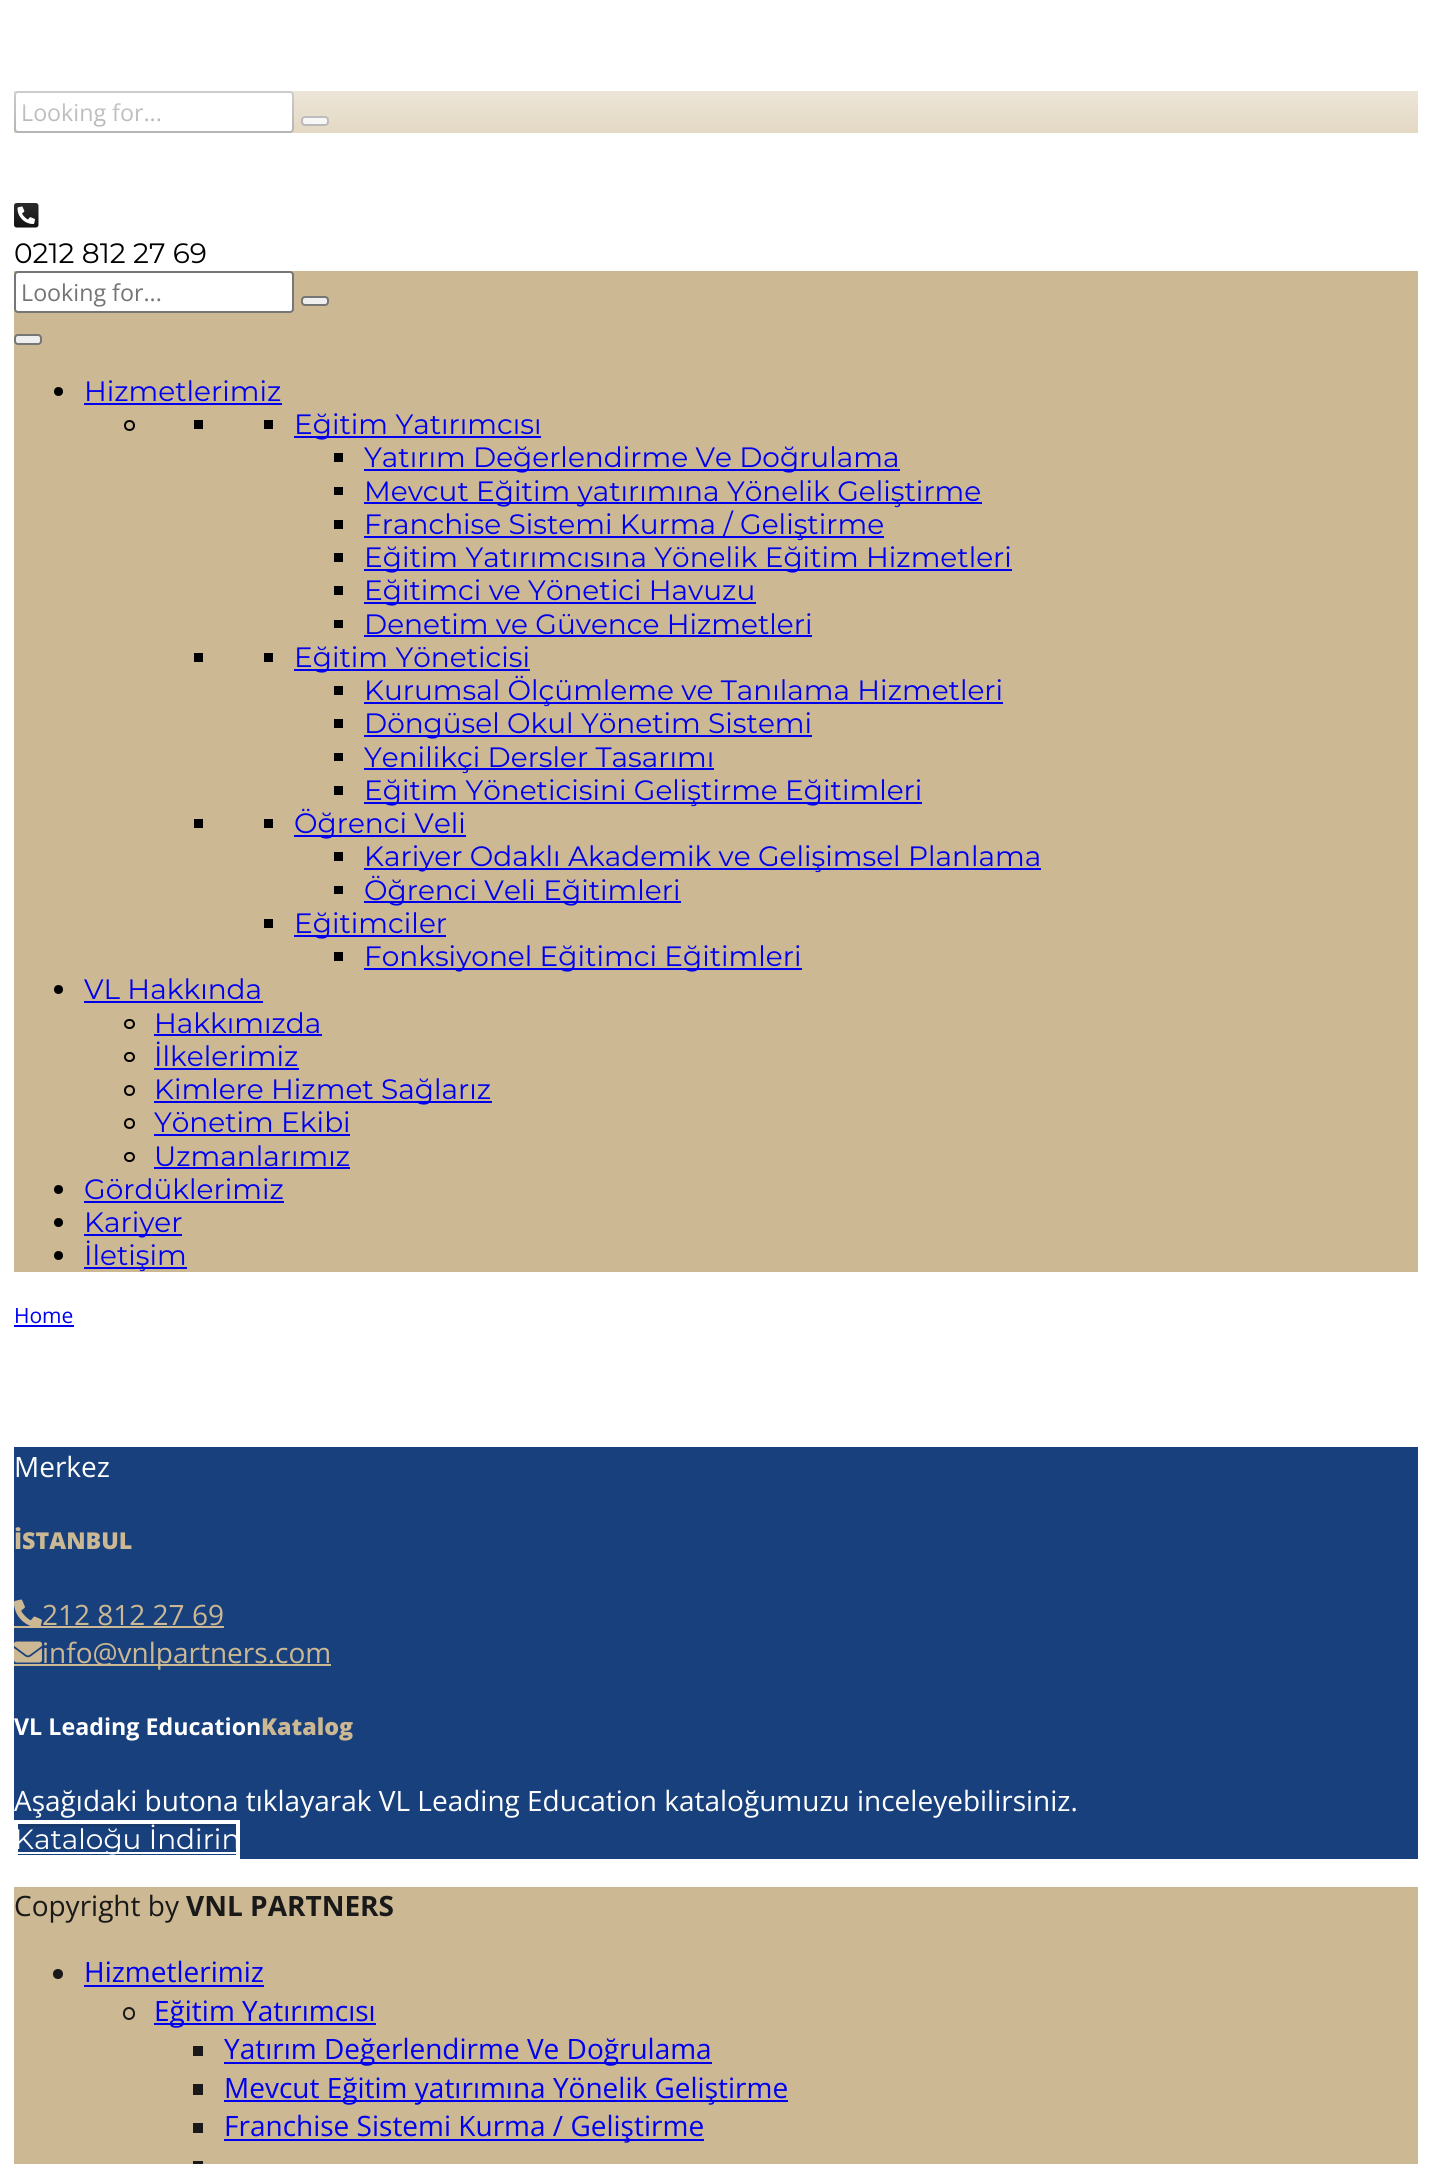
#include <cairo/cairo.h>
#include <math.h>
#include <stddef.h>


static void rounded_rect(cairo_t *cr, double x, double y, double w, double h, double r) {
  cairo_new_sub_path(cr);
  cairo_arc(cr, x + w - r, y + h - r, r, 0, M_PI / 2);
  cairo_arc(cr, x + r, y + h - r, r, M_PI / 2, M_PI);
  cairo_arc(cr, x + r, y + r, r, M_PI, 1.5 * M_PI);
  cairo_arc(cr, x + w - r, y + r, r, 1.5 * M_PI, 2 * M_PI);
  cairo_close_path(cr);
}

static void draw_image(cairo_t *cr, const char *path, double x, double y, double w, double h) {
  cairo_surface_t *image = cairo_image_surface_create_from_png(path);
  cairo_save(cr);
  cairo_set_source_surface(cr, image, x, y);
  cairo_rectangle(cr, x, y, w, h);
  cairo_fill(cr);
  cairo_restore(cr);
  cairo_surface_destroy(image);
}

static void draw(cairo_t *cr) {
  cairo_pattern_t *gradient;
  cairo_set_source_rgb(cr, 1, 1, 1);
  cairo_paint(cr);
  cairo_set_source_rgb(cr, 204 / 255.0, 184 / 255.0, 146 / 255.0);
  cairo_rectangle(cr, 14, 91, 1404, 42);
  cairo_fill(cr);
  cairo_set_source_rgb(cr, 1, 1, 1);
  rounded_rect(cr, 15, 92, 278, 40, 3);
  cairo_fill_preserve(cr);
  cairo_set_source_rgb(cr, 118 / 255.0, 118 / 255.0, 118 / 255.0);
  cairo_stroke(cr);
  cairo_set_source_rgb(cr, 239 / 255.0, 239 / 255.0, 239 / 255.0);
  rounded_rect(cr, 302, 117, 26, 8, 3);
  cairo_fill_preserve(cr);
  cairo_set_source_rgb(cr, 118 / 255.0, 118 / 255.0, 118 / 255.0);
  cairo_stroke(cr);
  draw_image(cr, "images/1.png", 14, 203, 25, 25);
  cairo_set_source_rgb(cr, 204 / 255.0, 184 / 255.0, 146 / 255.0);
  cairo_rectangle(cr, 14, 271, 1404, 1001);
  cairo_fill(cr);
  cairo_set_source_rgb(cr, 1, 1, 1);
  rounded_rect(cr, 15, 272, 278, 40, 3);
  cairo_fill_preserve(cr);
  cairo_set_source_rgb(cr, 118 / 255.0, 118 / 255.0, 118 / 255.0);
  cairo_stroke(cr);
  cairo_set_source_rgb(cr, 239 / 255.0, 239 / 255.0, 239 / 255.0);
  rounded_rect(cr, 302, 297, 26, 8, 3);
  cairo_fill_preserve(cr);
  cairo_set_source_rgb(cr, 118 / 255.0, 118 / 255.0, 118 / 255.0);
  cairo_stroke(cr);
  cairo_set_source_rgb(cr, 239 / 255.0, 239 / 255.0, 239 / 255.0);
  rounded_rect(cr, 15, 335, 26, 9, 3);
  cairo_fill_preserve(cr);
  cairo_set_source_rgb(cr, 118 / 255.0, 118 / 255.0, 118 / 255.0);
  cairo_stroke(cr);
  cairo_set_source_rgb(cr, 0, 0, 0);
  cairo_arc(cr, 58.5, 391.5, 4.5, 0, 2 * M_PI);
  cairo_fill(cr);
  cairo_set_source_rgb(cr, 0, 0, 238 / 255.0);
  cairo_rectangle(cr, 84, 403, 198, 2);
  cairo_fill(cr);
  cairo_arc(cr, 129.5, 425.5, 4.5, 0, 2 * M_PI);
  cairo_set_source_rgb(cr, 0, 0, 0);
  cairo_stroke(cr);
  cairo_rectangle(cr, 194, 420, 9, 9);
  cairo_fill(cr);
  cairo_rectangle(cr, 264, 420, 9, 9);
  cairo_fill(cr);
  cairo_set_source_rgb(cr, 0, 0, 238 / 255.0);
  cairo_rectangle(cr, 294, 436, 247, 2);
  cairo_fill(cr);
  cairo_set_source_rgb(cr, 0, 0, 0);
  cairo_rectangle(cr, 334, 453, 9, 9);
  cairo_fill(cr);
  cairo_set_source_rgb(cr, 0, 0, 238 / 255.0);
  cairo_rectangle(cr, 364, 469, 536, 2);
  cairo_fill(cr);
  cairo_set_source_rgb(cr, 0, 0, 0);
  cairo_rectangle(cr, 334, 487, 9, 8);
  cairo_fill(cr);
  cairo_set_source_rgb(cr, 0, 0, 238 / 255.0);
  cairo_rectangle(cr, 364, 502, 618, 2);
  cairo_fill(cr);
  cairo_set_source_rgb(cr, 0, 0, 0);
  cairo_rectangle(cr, 334, 520, 9, 9);
  cairo_fill(cr);
  cairo_set_source_rgb(cr, 0, 0, 238 / 255.0);
  cairo_rectangle(cr, 364, 536, 520, 2);
  cairo_fill(cr);
  cairo_set_source_rgb(cr, 0, 0, 0);
  cairo_rectangle(cr, 334, 553, 9, 9);
  cairo_fill(cr);
  cairo_set_source_rgb(cr, 0, 0, 238 / 255.0);
  cairo_rectangle(cr, 364, 569, 648, 2);
  cairo_fill(cr);
  cairo_set_source_rgb(cr, 0, 0, 0);
  cairo_rectangle(cr, 334, 586, 9, 9);
  cairo_fill(cr);
  cairo_set_source_rgb(cr, 0, 0, 238 / 255.0);
  cairo_rectangle(cr, 364, 602, 392, 2);
  cairo_fill(cr);
  cairo_set_source_rgb(cr, 0, 0, 0);
  cairo_rectangle(cr, 334, 620, 9, 8);
  cairo_fill(cr);
  cairo_set_source_rgb(cr, 0, 0, 238 / 255.0);
  cairo_rectangle(cr, 364, 635, 448, 2);
  cairo_fill(cr);
  cairo_set_source_rgb(cr, 0, 0, 0);
  cairo_rectangle(cr, 194, 653, 9, 9);
  cairo_fill(cr);
  cairo_rectangle(cr, 264, 653, 9, 9);
  cairo_fill(cr);
  cairo_set_source_rgb(cr, 0, 0, 238 / 255.0);
  cairo_rectangle(cr, 294, 669, 236, 2);
  cairo_fill(cr);
  cairo_set_source_rgb(cr, 0, 0, 0);
  cairo_rectangle(cr, 334, 686, 9, 9);
  cairo_fill(cr);
  cairo_set_source_rgb(cr, 0, 0, 238 / 255.0);
  cairo_rectangle(cr, 364, 702, 639, 2);
  cairo_fill(cr);
  cairo_set_source_rgb(cr, 0, 0, 0);
  cairo_rectangle(cr, 334, 719, 9, 9);
  cairo_fill(cr);
  cairo_set_source_rgb(cr, 0, 0, 238 / 255.0);
  cairo_rectangle(cr, 364, 735, 448, 2);
  cairo_fill(cr);
  cairo_set_source_rgb(cr, 0, 0, 0);
  cairo_rectangle(cr, 334, 753, 9, 8);
  cairo_fill(cr);
  cairo_set_source_rgb(cr, 0, 0, 238 / 255.0);
  cairo_rectangle(cr, 364, 768, 350, 2);
  cairo_fill(cr);
  cairo_set_source_rgb(cr, 0, 0, 0);
  cairo_rectangle(cr, 334, 786, 9, 9);
  cairo_fill(cr);
  cairo_set_source_rgb(cr, 0, 0, 238 / 255.0);
  cairo_rectangle(cr, 364, 802, 558, 2);
  cairo_fill(cr);
  cairo_set_source_rgb(cr, 0, 0, 0);
  cairo_rectangle(cr, 194, 819, 9, 9);
  cairo_fill(cr);
  cairo_rectangle(cr, 264, 819, 9, 9);
  cairo_fill(cr);
  cairo_set_source_rgb(cr, 0, 0, 238 / 255.0);
  cairo_rectangle(cr, 294, 835, 172, 2);
  cairo_fill(cr);
  cairo_set_source_rgb(cr, 0, 0, 0);
  cairo_rectangle(cr, 334, 852, 9, 9);
  cairo_fill(cr);
  cairo_set_source_rgb(cr, 0, 0, 238 / 255.0);
  cairo_rectangle(cr, 364, 868, 677, 2);
  cairo_fill(cr);
  cairo_set_source_rgb(cr, 0, 0, 0);
  cairo_rectangle(cr, 334, 886, 9, 8);
  cairo_fill(cr);
  cairo_set_source_rgb(cr, 0, 0, 238 / 255.0);
  cairo_rectangle(cr, 364, 901, 317, 2);
  cairo_fill(cr);
  cairo_set_source_rgb(cr, 0, 0, 0);
  cairo_rectangle(cr, 264, 919, 9, 9);
  cairo_fill(cr);
  cairo_set_source_rgb(cr, 0, 0, 238 / 255.0);
  cairo_rectangle(cr, 294, 935, 152, 2);
  cairo_fill(cr);
  cairo_set_source_rgb(cr, 0, 0, 0);
  cairo_rectangle(cr, 334, 952, 9, 9);
  cairo_fill(cr);
  cairo_set_source_rgb(cr, 0, 0, 238 / 255.0);
  cairo_rectangle(cr, 364, 968, 438, 2);
  cairo_fill(cr);
  cairo_set_source_rgb(cr, 0, 0, 0);
  cairo_arc(cr, 58.5, 989.5, 4.5, 0, 2 * M_PI);
  cairo_fill(cr);
  cairo_set_source_rgb(cr, 0, 0, 238 / 255.0);
  cairo_rectangle(cr, 84, 1001, 179, 2);
  cairo_fill(cr);
  rounded_rect(cr, 125, 1020, 9, 8, 4);
  cairo_set_source_rgb(cr, 0, 0, 0);
  cairo_stroke(cr);
  cairo_set_source_rgb(cr, 0, 0, 238 / 255.0);
  cairo_rectangle(cr, 154, 1034, 168, 2);
  cairo_fill(cr);
  rounded_rect(cr, 125, 1053, 9, 8, 4);
  cairo_set_source_rgb(cr, 0, 0, 0);
  cairo_stroke(cr);
  cairo_set_source_rgb(cr, 0, 0, 238 / 255.0);
  cairo_rectangle(cr, 154, 1068, 145, 2);
  cairo_fill(cr);
  cairo_arc(cr, 129.5, 1090.5, 4.5, 0, 2 * M_PI);
  cairo_set_source_rgb(cr, 0, 0, 0);
  cairo_stroke(cr);
  cairo_set_source_rgb(cr, 0, 0, 238 / 255.0);
  cairo_rectangle(cr, 154, 1101, 338, 2);
  cairo_fill(cr);
  cairo_arc(cr, 129.5, 1123.5, 4.5, 0, 2 * M_PI);
  cairo_set_source_rgb(cr, 0, 0, 0);
  cairo_stroke(cr);
  cairo_set_source_rgb(cr, 0, 0, 238 / 255.0);
  cairo_rectangle(cr, 154, 1134, 196, 2);
  cairo_fill(cr);
  rounded_rect(cr, 125, 1153, 9, 8, 4);
  cairo_set_source_rgb(cr, 0, 0, 0);
  cairo_stroke(cr);
  cairo_set_source_rgb(cr, 0, 0, 238 / 255.0);
  cairo_rectangle(cr, 154, 1167, 196, 2);
  cairo_fill(cr);
  cairo_set_source_rgb(cr, 0, 0, 0);
  cairo_arc(cr, 58.5, 1189.5, 4.5, 0, 2 * M_PI);
  cairo_fill(cr);
  cairo_set_source_rgb(cr, 0, 0, 238 / 255.0);
  cairo_rectangle(cr, 84, 1201, 200, 2);
  cairo_fill(cr);
  cairo_set_source_rgb(cr, 0, 0, 0);
  cairo_arc(cr, 58.5, 1222.5, 4.5, 0, 2 * M_PI);
  cairo_fill(cr);
  cairo_set_source_rgb(cr, 0, 0, 238 / 255.0);
  cairo_rectangle(cr, 84, 1234, 98, 2);
  cairo_fill(cr);
  cairo_set_source_rgb(cr, 0, 0, 0);
  cairo_arc(cr, 58.5, 1255.5, 4.5, 0, 2 * M_PI);
  cairo_fill(cr);
  cairo_set_source_rgb(cr, 0, 0, 238 / 255.0);
  cairo_rectangle(cr, 84, 1267, 103, 2);
  cairo_fill(cr);
  cairo_rectangle(cr, 14, 1325, 60, 2);
  cairo_fill(cr);
  cairo_set_source_rgb(cr, 24 / 255.0, 64 / 255.0, 124 / 255.0);
  cairo_rectangle(cr, 14, 1447, 1404, 412);
  cairo_fill(cr);
  draw_image(cr, "images/2.png", 14, 1599, 28, 27);
  cairo_set_source_rgb(cr, 204 / 255.0, 184 / 255.0, 146 / 255.0);
  cairo_rectangle(cr, 14, 1626, 210, 2);
  cairo_fill(cr);
  draw_image(cr, "images/3.png", 14, 1641, 28, 22);
  cairo_rectangle(cr, 14, 1664, 317, 2);
  cairo_fill(cr);
  cairo_set_source_rgb(cr, 24 / 255.0, 58 / 255.0, 109 / 255.0);
  cairo_rectangle(cr, 14, 1824, 226, 3);
  cairo_fill(cr);
  cairo_rectangle(cr, 16, 1822, 222, 35);
  cairo_set_source_rgb(cr, 1, 1, 1);
  cairo_set_line_width(cr, 4);
  cairo_stroke(cr);
  cairo_rectangle(cr, 14, 1852, 226, 2);
  cairo_fill(cr);
  cairo_set_source_rgb(cr, 204 / 255.0, 184 / 255.0, 146 / 255.0);
  cairo_rectangle(cr, 14, 1887, 1404, 277);
  cairo_fill(cr);
  cairo_set_source_rgb(cr, 25 / 255.0, 25 / 255.0, 25 / 255.0);
  cairo_arc(cr, 58, 1974, 5, 0, 2 * M_PI);
  cairo_fill(cr);
  cairo_set_source_rgb(cr, 0, 0, 238 / 255.0);
  cairo_rectangle(cr, 84, 1985, 180, 2);
  cairo_fill(cr);
  rounded_rect(cr, 124, 2008, 10, 11, 5);
  cairo_set_source_rgb(cr, 25 / 255.0, 25 / 255.0, 25 / 255.0);
  cairo_set_line_width(cr, 2);
  cairo_stroke(cr);
  cairo_set_source_rgb(cr, 0, 0, 238 / 255.0);
  cairo_rectangle(cr, 154, 2023, 222, 2);
  cairo_fill(cr);
  cairo_set_source_rgb(cr, 25 / 255.0, 25 / 255.0, 25 / 255.0);
  cairo_rectangle(cr, 193, 2046, 10, 10);
  cairo_fill(cr);
  cairo_set_source_rgb(cr, 0, 0, 238 / 255.0);
  cairo_rectangle(cr, 224, 2062, 488, 2);
  cairo_fill(cr);
  cairo_set_source_rgb(cr, 25 / 255.0, 25 / 255.0, 25 / 255.0);
  cairo_rectangle(cr, 193, 2084, 10, 11);
  cairo_fill(cr);
  cairo_set_source_rgb(cr, 0, 0, 238 / 255.0);
  cairo_rectangle(cr, 224, 2100, 564, 2);
  cairo_fill(cr);
  cairo_set_source_rgb(cr, 25 / 255.0, 25 / 255.0, 25 / 255.0);
  cairo_rectangle(cr, 193, 2123, 10, 10);
  cairo_fill(cr);
  cairo_set_source_rgb(cr, 0, 0, 238 / 255.0);
  cairo_rectangle(cr, 224, 2139, 480, 2);
  cairo_fill(cr);
  cairo_set_source_rgb(cr, 25 / 255.0, 25 / 255.0, 25 / 255.0);
  cairo_rectangle(cr, 193, 2161, 10, 3);
  cairo_fill(cr);
  cairo_select_font_face(cr, "Open Sans", CAIRO_FONT_SLANT_NORMAL, CAIRO_FONT_WEIGHT_NORMAL);
  cairo_set_font_size(cr, 23.25);
  cairo_set_source_rgb(cr, 117 / 255.0, 117 / 255.0, 117 / 255.0);
  cairo_move_to(cr, 21, 121);
  cairo_show_text(cr, "Looking for...");
  cairo_select_font_face(cr, "Montserrat", CAIRO_FONT_SLANT_NORMAL, CAIRO_FONT_WEIGHT_NORMAL);
  cairo_set_font_size(cr, 28);
  cairo_set_source_rgb(cr, 0, 0, 0);
  cairo_move_to(cr, 14, 263);
  cairo_show_text(cr, "0212 812 27 69");
  cairo_select_font_face(cr, "Open Sans", CAIRO_FONT_SLANT_NORMAL, CAIRO_FONT_WEIGHT_NORMAL);
  cairo_set_font_size(cr, 23.25);
  cairo_set_source_rgb(cr, 117 / 255.0, 117 / 255.0, 117 / 255.0);
  cairo_move_to(cr, 21, 301);
  cairo_show_text(cr, "Looking for...");
  cairo_select_font_face(cr, "Montserrat", CAIRO_FONT_SLANT_NORMAL, CAIRO_FONT_WEIGHT_NORMAL);
  cairo_set_font_size(cr, 28);
  cairo_set_source_rgb(cr, 0, 0, 238 / 255.0);
  cairo_move_to(cr, 84, 401);
  cairo_show_text(cr, "Hizmetlerimiz");
  cairo_move_to(cr, 294, 434);
  cairo_show_text(cr, "Eğitim Yatırımcısı");
  cairo_move_to(cr, 364, 467);
  cairo_show_text(cr, "Yatırım Değerlendirme Ve Doğrulama");
  cairo_move_to(cr, 364, 501);
  cairo_show_text(cr, "Mevcut Eğitim yatırımına Yönelik Geliştirme");
  cairo_move_to(cr, 364, 534);
  cairo_show_text(cr, "Franchise Sistemi Kurma / Geliştirme");
  cairo_move_to(cr, 364, 567);
  cairo_show_text(cr, "Eğitim Yatırımcısına Yönelik Eğitim Hizmetleri");
  cairo_move_to(cr, 364, 600);
  cairo_show_text(cr, "Eğitimci ve Yönetici Havuzu");
  cairo_move_to(cr, 364, 634);
  cairo_show_text(cr, "Denetim ve Güvence Hizmetleri");
  cairo_move_to(cr, 294, 667);
  cairo_show_text(cr, "Eğitim Yöneticisi");
  cairo_move_to(cr, 364, 700);
  cairo_show_text(cr, "Kurumsal Ölçümleme ve Tanılama Hizmetleri");
  cairo_move_to(cr, 364, 733);
  cairo_show_text(cr, "Döngüsel Okul Yönetim Sistemi");
  cairo_move_to(cr, 364, 767);
  cairo_show_text(cr, "Yenilikçi Dersler Tasarımı");
  cairo_move_to(cr, 364, 800);
  cairo_show_text(cr, "Eğitim Yöneticisini Geliştirme Eğitimleri");
  cairo_move_to(cr, 294, 833);
  cairo_show_text(cr, "Öğrenci Veli");
  cairo_move_to(cr, 364, 866);
  cairo_show_text(cr, "Kariyer Odaklı Akademik ve Gelişimsel Planlama");
  cairo_move_to(cr, 364, 900);
  cairo_show_text(cr, "Öğrenci Veli Eğitimleri");
  cairo_move_to(cr, 294, 933);
  cairo_show_text(cr, "Eğitimciler");
  cairo_move_to(cr, 364, 966);
  cairo_show_text(cr, "Fonksiyonel Eğitimci Eğitimleri");
  cairo_move_to(cr, 84, 999);
  cairo_show_text(cr, "VL Hakkında");
  cairo_move_to(cr, 154, 1033);
  cairo_show_text(cr, "Hakkımızda");
  cairo_move_to(cr, 154, 1066);
  cairo_show_text(cr, "İlkelerimiz");
  cairo_move_to(cr, 154, 1099);
  cairo_show_text(cr, "Kimlere Hizmet Sağlarız");
  cairo_move_to(cr, 154, 1132);
  cairo_show_text(cr, "Yönetim Ekibi");
  cairo_move_to(cr, 154, 1166);
  cairo_show_text(cr, "Uzmanlarımız");
  cairo_move_to(cr, 84, 1199);
  cairo_show_text(cr, "Gördüklerimiz");
  cairo_move_to(cr, 84, 1232);
  cairo_show_text(cr, "Kariyer");
  cairo_move_to(cr, 84, 1265);
  cairo_show_text(cr, "İletişim");
  gradient = cairo_pattern_create_linear(716, 0, 716, 245);
  cairo_pattern_add_color_stop_rgba(gradient, 0, 1, 1, 1, 1);
  cairo_pattern_add_color_stop_rgba(gradient, 1, 1, 1, 1, 0);
  cairo_set_source(cr, gradient);
  cairo_pattern_destroy(gradient);
  cairo_rectangle(cr, 14, 91, 1404, 137);
  cairo_fill(cr);
  cairo_select_font_face(cr, "Open Sans", CAIRO_FONT_SLANT_NORMAL, CAIRO_FONT_WEIGHT_NORMAL);
  cairo_set_font_size(cr, 21);
  cairo_set_source_rgb(cr, 0, 0, 238 / 255.0);
  cairo_move_to(cr, 14, 1323);
  cairo_show_text(cr, "Home");
  cairo_set_font_size(cr, 28);
  cairo_set_source_rgb(cr, 1, 1, 1);
  cairo_move_to(cr, 14, 1477);
  cairo_show_text(cr, "Merkez");
  cairo_select_font_face(cr, "Open Sans ExtraBold", CAIRO_FONT_SLANT_NORMAL, CAIRO_FONT_WEIGHT_NORMAL);
  cairo_set_font_size(cr, 23.25);
  cairo_set_source_rgb(cr, 204 / 255.0, 184 / 255.0, 146 / 255.0);
  cairo_move_to(cr, 14, 1549);
  cairo_show_text(cr, "İSTANBUL");
  cairo_select_font_face(cr, "Open Sans", CAIRO_FONT_SLANT_NORMAL, CAIRO_FONT_WEIGHT_NORMAL);
  cairo_set_font_size(cr, 28);
  cairo_move_to(cr, 42, 1625);
  cairo_show_text(cr, "212 812 27 69");
  cairo_move_to(cr, 42, 1663);
  cairo_show_text(cr, "info@vnlpartners.com");
  cairo_select_font_face(cr, "Open Sans", CAIRO_FONT_SLANT_NORMAL, CAIRO_FONT_WEIGHT_BOLD);
  cairo_set_font_size(cr, 23.25);
  cairo_set_source_rgb(cr, 1, 1, 1);
  cairo_move_to(cr, 14, 1735);
  cairo_show_text(cr, "VL Leading Education");
  cairo_select_font_face(cr, "Open Sans ExtraBold", CAIRO_FONT_SLANT_NORMAL, CAIRO_FONT_WEIGHT_NORMAL);
  cairo_set_source_rgb(cr, 204 / 255.0, 184 / 255.0, 146 / 255.0);
  cairo_move_to(cr, 261, 1735);
  cairo_show_text(cr, "Katalog");
  cairo_select_font_face(cr, "Open Sans", CAIRO_FONT_SLANT_NORMAL, CAIRO_FONT_WEIGHT_NORMAL);
  cairo_set_font_size(cr, 28);
  cairo_set_source_rgb(cr, 1, 1, 1);
  cairo_move_to(cr, 14, 1811);
  cairo_show_text(cr, "Aşağıdaki butona tıklayarak VL Leading Education kataloğumuzu inceleyebilirsiniz.");
  cairo_select_font_face(cr, "Montserrat", CAIRO_FONT_SLANT_NORMAL, CAIRO_FONT_WEIGHT_NORMAL);
  cairo_move_to(cr, 14, 1849);
  cairo_show_text(cr, "Kataloğu İndirin");
  cairo_select_font_face(cr, "Open Sans", CAIRO_FONT_SLANT_NORMAL, CAIRO_FONT_WEIGHT_NORMAL);
  cairo_set_source_rgb(cr, 25 / 255.0, 25 / 255.0, 25 / 255.0);
  cairo_move_to(cr, 14, 1916);
  cairo_show_text(cr, "Copyright by");
  cairo_select_font_face(cr, "Open Sans", CAIRO_FONT_SLANT_NORMAL, CAIRO_FONT_WEIGHT_BOLD);
  cairo_move_to(cr, 186, 1916);
  cairo_show_text(cr, "VNL PARTNERS");
  cairo_select_font_face(cr, "Open Sans", CAIRO_FONT_SLANT_NORMAL, CAIRO_FONT_WEIGHT_NORMAL);
  cairo_set_source_rgb(cr, 0, 0, 238 / 255.0);
  cairo_move_to(cr, 84, 1982);
  cairo_show_text(cr, "Hizmetlerimiz");
  cairo_move_to(cr, 154, 2021);
  cairo_show_text(cr, "Eğitim Yatırımcısı");
  cairo_move_to(cr, 224, 2059);
  cairo_show_text(cr, "Yatırım Değerlendirme Ve Doğrulama");
  cairo_move_to(cr, 224, 2098);
  cairo_show_text(cr, "Mevcut Eğitim yatırımına Yönelik Geliştirme");
  cairo_move_to(cr, 224, 2136);
  cairo_show_text(cr, "Franchise Sistemi Kurma / Geliştirme");
}

int main(void) {
  cairo_surface_t *surface = cairo_image_surface_create(CAIRO_FORMAT_RGB24, 1430, 2164);
  cairo_t *cr = cairo_create(surface);
  cairo_font_options_t *options = cairo_font_options_create();
  cairo_font_options_set_hint_metrics(options, CAIRO_HINT_METRICS_OFF);
  cairo_font_options_set_hint_style(options, CAIRO_HINT_STYLE_NONE);
  cairo_set_font_options(cr, options);
  cairo_set_miter_limit(cr, 4);
  draw(cr);
  cairo_surface_write_to_png(surface, "out.png");
  cairo_font_options_destroy(options);
  cairo_destroy(cr);
  cairo_surface_destroy(surface);
  return 0;
}
